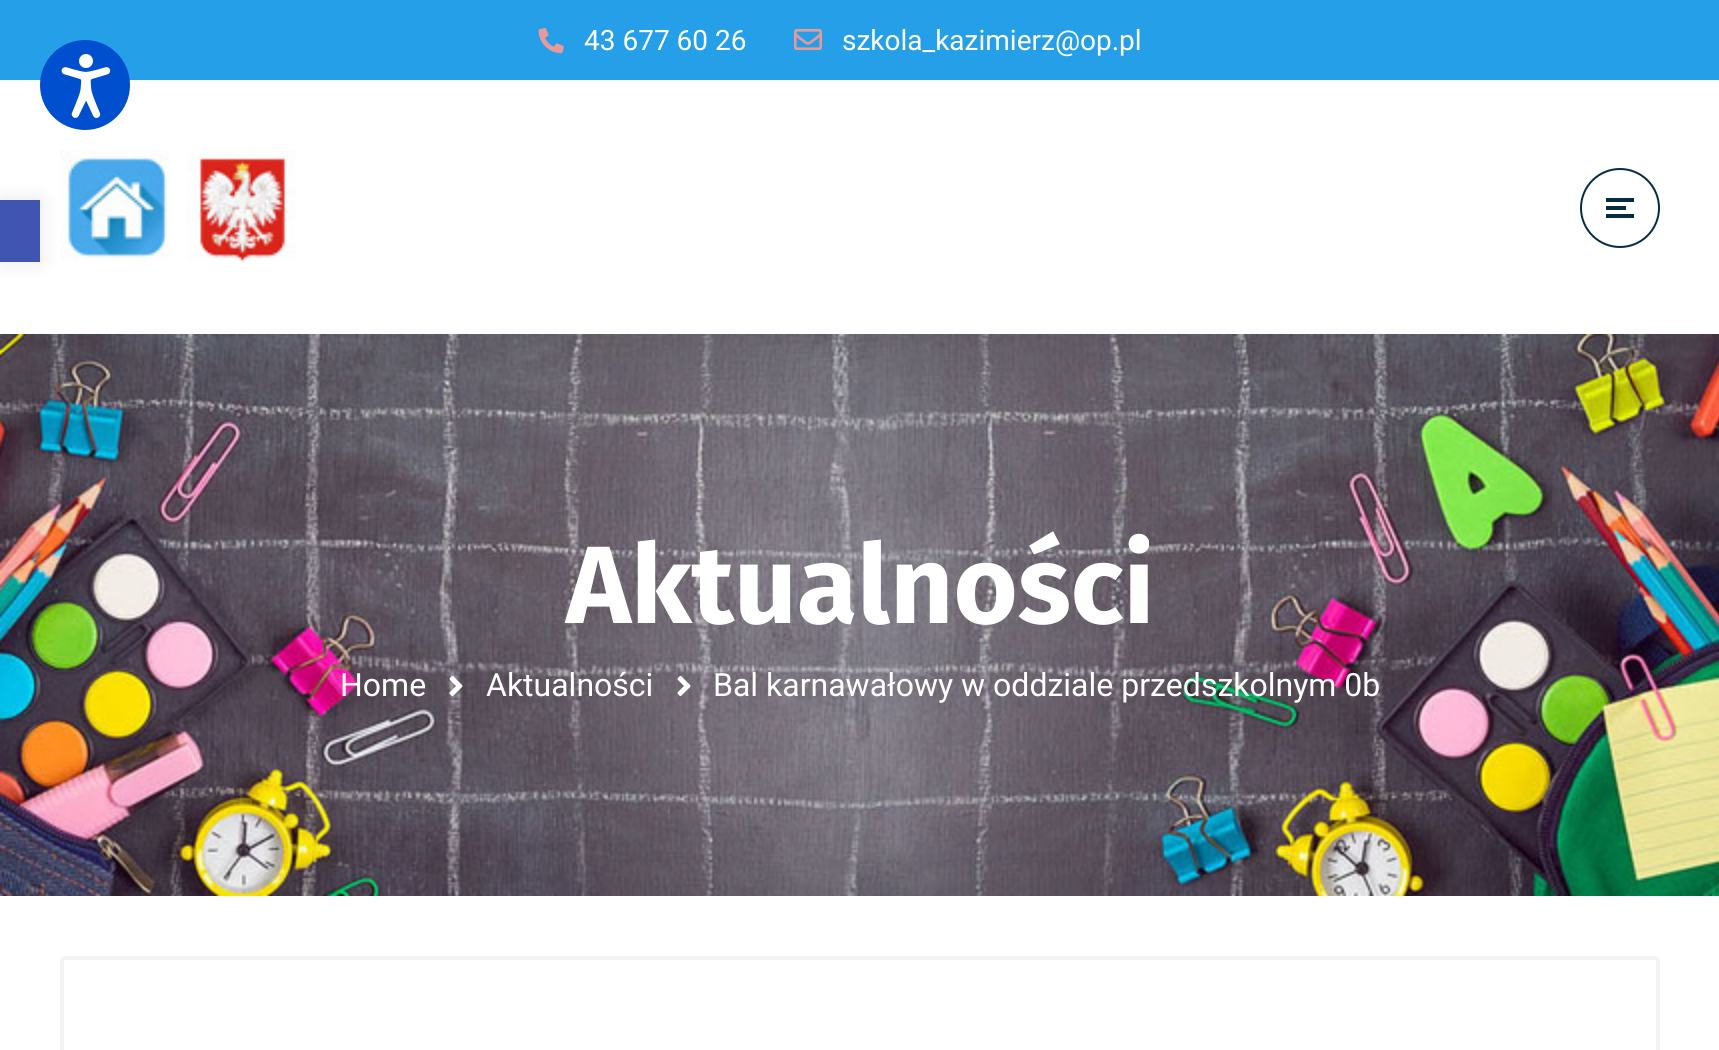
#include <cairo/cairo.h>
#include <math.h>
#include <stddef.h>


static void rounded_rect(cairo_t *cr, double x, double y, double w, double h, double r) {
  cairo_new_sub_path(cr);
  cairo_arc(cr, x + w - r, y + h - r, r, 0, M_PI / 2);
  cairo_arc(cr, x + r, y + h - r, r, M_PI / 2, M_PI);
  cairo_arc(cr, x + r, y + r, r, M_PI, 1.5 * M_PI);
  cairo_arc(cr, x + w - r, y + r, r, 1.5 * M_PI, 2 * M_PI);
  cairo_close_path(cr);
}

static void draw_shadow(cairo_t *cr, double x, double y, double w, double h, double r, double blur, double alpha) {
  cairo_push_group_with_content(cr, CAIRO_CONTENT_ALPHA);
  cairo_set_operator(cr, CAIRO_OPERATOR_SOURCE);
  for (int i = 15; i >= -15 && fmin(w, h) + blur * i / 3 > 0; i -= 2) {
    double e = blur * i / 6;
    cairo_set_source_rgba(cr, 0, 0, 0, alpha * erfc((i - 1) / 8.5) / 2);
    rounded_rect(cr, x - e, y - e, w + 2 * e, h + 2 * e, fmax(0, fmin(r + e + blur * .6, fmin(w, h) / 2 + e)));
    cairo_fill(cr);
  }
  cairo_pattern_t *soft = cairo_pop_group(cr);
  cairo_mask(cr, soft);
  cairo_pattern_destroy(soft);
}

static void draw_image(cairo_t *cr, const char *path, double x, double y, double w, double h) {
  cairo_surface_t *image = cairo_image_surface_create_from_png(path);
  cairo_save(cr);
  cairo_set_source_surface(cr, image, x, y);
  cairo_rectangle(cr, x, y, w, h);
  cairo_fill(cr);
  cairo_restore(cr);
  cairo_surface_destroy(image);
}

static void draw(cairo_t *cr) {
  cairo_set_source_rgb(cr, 1, 1, 1);
  cairo_paint(cr);
  cairo_set_source_rgb(cr, 37 / 255.0, 160 / 255.0, 232 / 255.0);
  cairo_rectangle(cr, 0, 0, 1719, 80);
  cairo_fill(cr);
  cairo_set_source_rgb(cr, 0, 79 / 255.0, 206 / 255.0);
  cairo_arc(cr, 85, 85, 45, 0, 2 * M_PI);
  cairo_fill(cr);
  draw_image(cr, "images/1.png", 61, 54, 50, 64);
  draw_image(cr, "images/4.png", 60, 150, 236, 114);
  cairo_set_source_rgb(cr, 0, 0, 0);
  draw_shadow(cr, 0, 200, 40, 62, 0, 10, 0.1);
  cairo_set_source_rgb(cr, 64 / 255.0, 84 / 255.0, 178 / 255.0);
  cairo_rectangle(cr, 0, 200, 40, 62);
  cairo_fill(cr);
  draw_image(cr, "images/2.png", 538, 28, 26, 26);
  draw_image(cr, "images/3.png", 794, 29, 28, 21);
  cairo_arc(cr, 1620, 208, 39, 0, 2 * M_PI);
  cairo_set_source_rgb(cr, 3 / 255.0, 46 / 255.0, 66 / 255.0);
  cairo_stroke(cr);
  cairo_rectangle(cr, 1606, 198, 28, 4);
  cairo_fill(cr);
  cairo_rectangle(cr, 1606, 206, 20, 4);
  cairo_fill(cr);
  cairo_rectangle(cr, 1606, 214, 28, 4);
  cairo_fill(cr);
  draw_image(cr, "images/5.png", 0, 334, 1719, 562);
  draw_image(cr, "images/6.png", 449, 676, 14, 20);
  draw_image(cr, "images/7.png", 677, 676, 14, 20);
  rounded_rect(cr, 62, 958, 1596, 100, 4);
  cairo_set_source_rgb(cr, 243 / 255.0, 243 / 255.0, 243 / 255.0);
  cairo_set_line_width(cr, 4);
  cairo_stroke(cr);
  cairo_select_font_face(cr, "Roboto", CAIRO_FONT_SLANT_NORMAL, CAIRO_FONT_WEIGHT_NORMAL);
  cairo_set_font_size(cr, 28);
  cairo_set_source_rgb(cr, 1, 1, 1);
  cairo_move_to(cr, 584, 50);
  cairo_show_text(cr, "43 677 60 26");
  cairo_move_to(cr, 842, 50);
  cairo_show_text(cr, "szkola_kazimierz@op.pl");
  cairo_select_font_face(cr, "Fira Sans", CAIRO_FONT_SLANT_NORMAL, CAIRO_FONT_WEIGHT_BOLD);
  cairo_set_font_size(cr, 110);
  cairo_move_to(cr, 566, 623);
  cairo_show_text(cr, "Aktualności");
  cairo_select_font_face(cr, "Roboto", CAIRO_FONT_SLANT_NORMAL, CAIRO_FONT_WEIGHT_NORMAL);
  cairo_set_font_size(cr, 32);
  cairo_move_to(cr, 340, 696);
  cairo_show_text(cr, "Home");
  cairo_move_to(cr, 486, 696);
  cairo_show_text(cr, "Aktualności");
  cairo_move_to(cr, 713, 696);
  cairo_show_text(cr, "Bal karnawałowy w oddziale przedszkolnym 0b");
}

int main(void) {
  cairo_surface_t *surface = cairo_image_surface_create(CAIRO_FORMAT_RGB24, 1719, 1050);
  cairo_t *cr = cairo_create(surface);
  cairo_font_options_t *options = cairo_font_options_create();
  cairo_font_options_set_hint_metrics(options, CAIRO_HINT_METRICS_OFF);
  cairo_font_options_set_hint_style(options, CAIRO_HINT_STYLE_NONE);
  cairo_set_font_options(cr, options);
  cairo_set_miter_limit(cr, 4);
  draw(cr);
  cairo_surface_write_to_png(surface, "out.png");
  cairo_font_options_destroy(options);
  cairo_destroy(cr);
  cairo_surface_destroy(surface);
  return 0;
}
